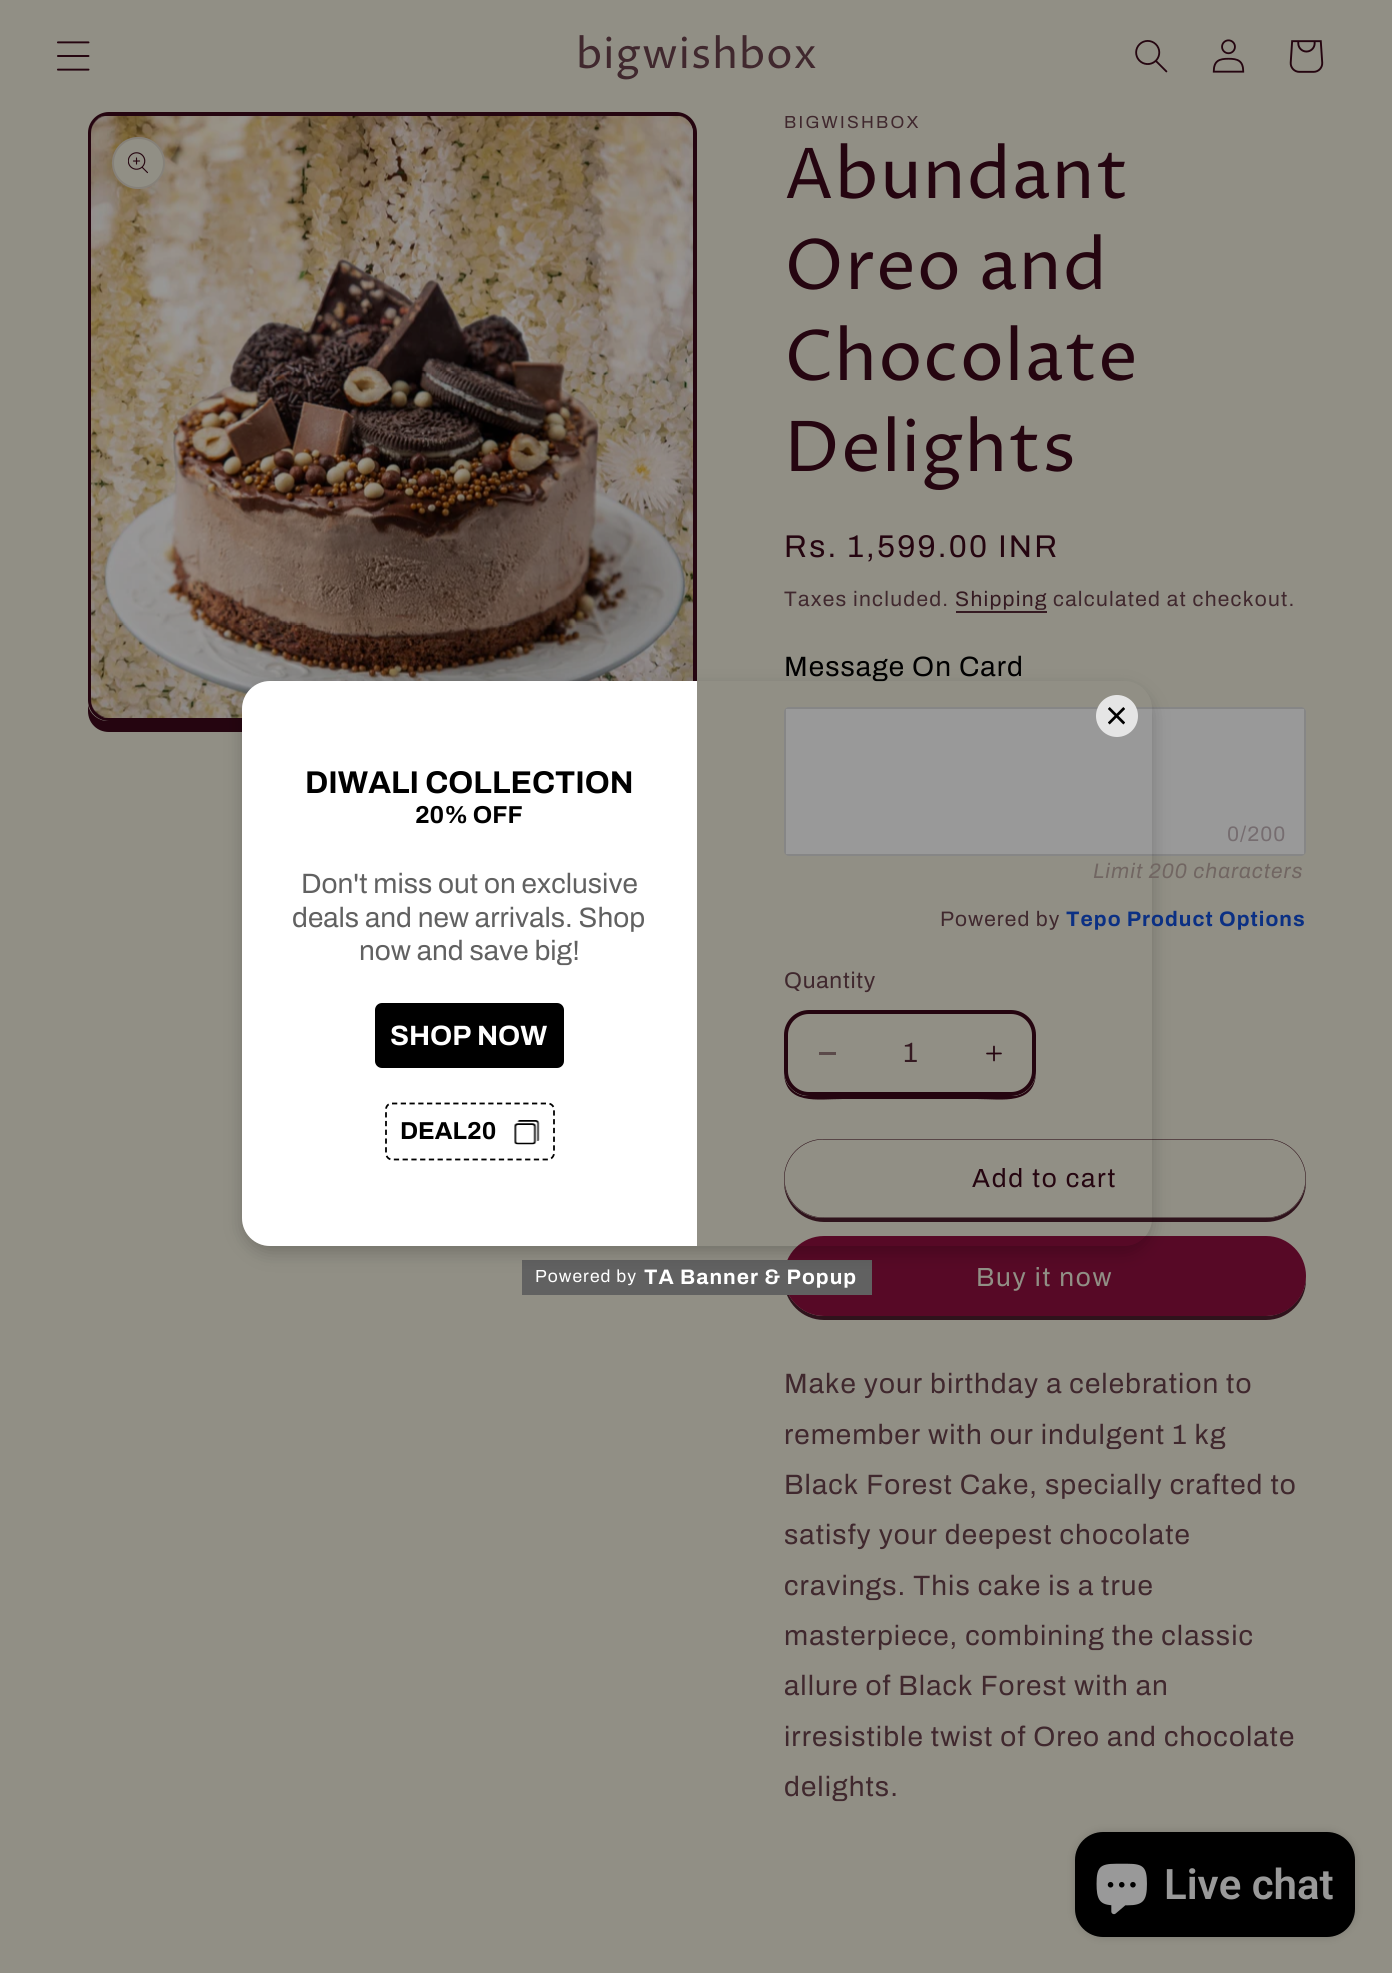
#include <cairo/cairo.h>
#include <math.h>
#include <stddef.h>


static void draw_spaced(cairo_t *cr, double x, double y, const char *s, double letter, double word) {
  cairo_move_to(cr, x, y);
  while (*s) {
    char ch[5] = {0};
    int n = 0;
    do ch[n++] = *s++; while ((*s & 0xC0) == 0x80);
    cairo_show_text(cr, ch);
    cairo_rel_move_to(cr, letter + word * (*ch == ' '), 0);
  }
}

static void rounded_rect(cairo_t *cr, double x, double y, double w, double h, double r) {
  cairo_new_sub_path(cr);
  cairo_arc(cr, x + w - r, y + h - r, r, 0, M_PI / 2);
  cairo_arc(cr, x + r, y + h - r, r, M_PI / 2, M_PI);
  cairo_arc(cr, x + r, y + r, r, M_PI, 1.5 * M_PI);
  cairo_arc(cr, x + w - r, y + r, r, 1.5 * M_PI, 2 * M_PI);
  cairo_close_path(cr);
}

static void draw_shadow(cairo_t *cr, double x, double y, double w, double h, double r, double blur, double alpha) {
  cairo_push_group_with_content(cr, CAIRO_CONTENT_ALPHA);
  cairo_set_operator(cr, CAIRO_OPERATOR_SOURCE);
  for (int i = 15; i >= -15 && fmin(w, h) + blur * i / 3 > 0; i -= 2) {
    double e = blur * i / 6;
    cairo_set_source_rgba(cr, 0, 0, 0, alpha * erfc((i - 1) / 8.5) / 2);
    rounded_rect(cr, x - e, y - e, w + 2 * e, h + 2 * e, fmax(0, fmin(r + e + blur * .6, fmin(w, h) / 2 + e)));
    cairo_fill(cr);
  }
  cairo_pattern_t *soft = cairo_pop_group(cr);
  cairo_mask(cr, soft);
  cairo_pattern_destroy(soft);
}

static void draw_image(cairo_t *cr, const char *path, double x, double y, double w, double h) {
  cairo_surface_t *image = cairo_image_surface_create_from_png(path);
  cairo_save(cr);
  cairo_set_source_surface(cr, image, x, y);
  cairo_rectangle(cr, x, y, w, h);
  cairo_fill(cr);
  cairo_restore(cr);
  cairo_surface_destroy(image);
}

static void draw(cairo_t *cr) {
  cairo_set_source_rgb(cr, 145 / 255.0, 143 / 255.0, 133 / 255.0);
  cairo_paint(cr);
  draw_image(cr, "images/1.png", 57, 41, 33, 30);
  draw_image(cr, "images/2.png", 1135, 40, 33, 33);
  draw_image(cr, "images/3.png", 1212, 39, 33, 34);
  draw_image(cr, "images/4.png", 1289, 40, 35, 33);
  cairo_set_source_rgb(cr, 47 / 255.0, 19 / 255.0, 28 / 255.0);
  cairo_new_path(cr);
  cairo_move_to(cr, 784, 1278);
  cairo_line_to(cr, 784, 1280);
  cairo_curve_to(cr, 784, 1302, 802, 1320, 824, 1320);
  cairo_line_to(cr, 1266, 1320);
  cairo_curve_to(cr, 1288, 1320, 1306, 1302, 1306, 1280);
  cairo_line_to(cr, 1305, 1272);
  cairo_line_to(cr, 1306, 1276);
  cairo_curve_to(cr, 1306, 1298, 1287, 1316, 1265, 1316);
  cairo_line_to(cr, 824, 1316);
  cairo_curve_to(cr, 803, 1316, 785, 1299, 784, 1278);
  cairo_close_path(cr);
  cairo_fill(cr);
  cairo_set_source_rgb(cr, 87 / 255.0, 9 / 255.0, 38 / 255.0);
  rounded_rect(cr, 784, 1236, 522, 80, 40);
  cairo_fill(cr);
  cairo_set_source_rgb(cr, 97 / 255.0, 97 / 255.0, 97 / 255.0);
  cairo_rectangle(cr, 522, 1260, 350, 35);
  cairo_fill(cr);
  cairo_set_source_rgb(cr, 37 / 255.0, 5 / 255.0, 16 / 255.0);
  cairo_new_path(cr);
  cairo_move_to(cr, 88, 705);
  cairo_line_to(cr, 88, 711);
  cairo_curve_to(cr, 88, 723, 97, 732, 109, 732);
  cairo_line_to(cr, 676, 732);
  cairo_curve_to(cr, 688, 732, 697, 723, 697, 711);
  cairo_line_to(cr, 697, 144);
  cairo_line_to(cr, 696, 139);
  cairo_line_to(cr, 696, 700);
  cairo_curve_to(cr, 696, 712, 687, 721, 676, 721);
  cairo_line_to(cr, 108, 721);
  cairo_curve_to(cr, 98, 721, 90, 714, 88, 705);
  cairo_close_path(cr);
  cairo_fill(cr);
  rounded_rect(cr, 90, 114, 605, 605, 19);
  cairo_set_line_width(cr, 4);
  cairo_stroke(cr);
  draw_image(cr, "images/7.png", 91, 116, 602, 602);
  rounded_rect(cr, 785, 708, 520, 147, 4);
  cairo_set_source_rgb(cr, 134 / 255.0, 134 / 255.0, 134 / 255.0);
  cairo_set_line_width(cr, 2);
  cairo_stroke(cr);
  cairo_set_source_rgb(cr, 153 / 255.0, 153 / 255.0, 153 / 255.0);
  cairo_rectangle(cr, 786, 709, 518, 145);
  cairo_fill(cr);
  cairo_set_source_rgb(cr, 37 / 255.0, 5 / 255.0, 16 / 255.0);
  cairo_new_path(cr);
  cairo_move_to(cr, 784, 1071);
  cairo_curve_to(cr, 784, 1106, 818, 1099, 843, 1099);
  cairo_line_to(cr, 977, 1099);
  cairo_curve_to(cr, 1002, 1099, 1036, 1106, 1036, 1071);
  cairo_curve_to(cr, 1036, 1085, 1025, 1096, 1012, 1096);
  cairo_line_to(cr, 808, 1096);
  cairo_curve_to(cr, 795, 1096, 784, 1085, 784, 1071);
  cairo_close_path(cr);
  cairo_fill(cr);
  cairo_set_source_rgb(cr, 145 / 255.0, 143 / 255.0, 133 / 255.0);
  rounded_rect(cr, 784, 1010, 252, 86, 25);
  cairo_fill(cr);
  cairo_set_source_rgb(cr, 91 / 255.0, 74 / 255.0, 74 / 255.0);
  cairo_rectangle(cr, 819, 1052, 17, 3);
  cairo_fill(cr);
  draw_image(cr, "images/9.png", 986, 1045, 16, 17);
  rounded_rect(cr, 786, 1012, 248, 82, 23);
  cairo_set_source_rgb(cr, 37 / 255.0, 5 / 255.0, 16 / 255.0);
  cairo_set_line_width(cr, 4);
  cairo_stroke(cr);
  cairo_set_source_rgb(cr, 47 / 255.0, 19 / 255.0, 28 / 255.0);
  cairo_new_path(cr);
  cairo_move_to(cr, 784, 1181);
  cairo_line_to(cr, 784, 1182);
  cairo_curve_to(cr, 784, 1204, 802, 1222, 824, 1222);
  cairo_line_to(cr, 1266, 1222);
  cairo_curve_to(cr, 1288, 1222, 1306, 1204, 1306, 1182);
  cairo_line_to(cr, 1305, 1175);
  cairo_line_to(cr, 1306, 1179);
  cairo_curve_to(cr, 1306, 1200, 1288, 1218, 1266, 1218);
  cairo_line_to(cr, 823, 1218);
  cairo_curve_to(cr, 802, 1218, 785, 1201, 784, 1181);
  cairo_close_path(cr);
  cairo_fill(cr);
  cairo_set_source_rgb(cr, 145 / 255.0, 143 / 255.0, 133 / 255.0);
  rounded_rect(cr, 784, 1139, 522, 79, 39.5);
  cairo_fill(cr);
  rounded_rect(cr, 784.25, 1139.25, 521.5, 78.5, 39.25);
  cairo_set_source_rgb(cr, 37 / 255.0, 5 / 255.0, 16 / 255.0);
  cairo_set_line_width(cr, 0.5);
  cairo_stroke(cr);
  cairo_save(cr);
  cairo_set_fill_rule(cr, CAIRO_FILL_RULE_EVEN_ODD);
  cairo_new_path(cr);
  cairo_move_to(cr, 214, 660);
  cairo_line_to(cr, 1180, 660);
  cairo_line_to(cr, 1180, 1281);
  cairo_line_to(cr, 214, 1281);
  cairo_close_path(cr);
  cairo_move_to(cr, 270, 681);
  cairo_line_to(cr, 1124, 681);
  cairo_curve_to(cr, 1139.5, 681, 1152, 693.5, 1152, 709);
  cairo_line_to(cr, 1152, 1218);
  cairo_curve_to(cr, 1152, 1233.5, 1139.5, 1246, 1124, 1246);
  cairo_line_to(cr, 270, 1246);
  cairo_curve_to(cr, 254.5, 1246, 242, 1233.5, 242, 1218);
  cairo_line_to(cr, 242, 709);
  cairo_curve_to(cr, 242, 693.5, 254.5, 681, 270, 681);
  cairo_close_path(cr);
  cairo_clip(cr);
  cairo_set_source_rgb(cr, 0, 0, 0);
  draw_shadow(cr, 242, 688, 910, 565, 28, 9, 0.2);
  cairo_restore(cr);
  cairo_set_source_rgb(cr, 229 / 255.0, 229 / 255.0, 229 / 255.0);
  cairo_arc(cr, 1117, 716, 21, 0, 2 * M_PI);
  cairo_fill(cr);
  draw_image(cr, "images/5.png", 1108, 707, 17, 18);
  cairo_set_source_rgb(cr, 1, 1, 1);
  cairo_new_path(cr);
  cairo_move_to(cr, 270, 681);
  cairo_line_to(cr, 697, 681);
  cairo_line_to(cr, 697, 1246);
  cairo_line_to(cr, 270, 1246);
  cairo_curve_to(cr, 254.5, 1246, 242, 1233.5, 242, 1218);
  cairo_line_to(cr, 242, 709);
  cairo_curve_to(cr, 242, 693.5, 254.5, 681, 270, 681);
  cairo_close_path(cr);
  cairo_fill(cr);
  cairo_set_source_rgb(cr, 0, 0, 0);
  rounded_rect(cr, 376, 1004, 187, 63, 6);
  cairo_fill_preserve(cr);
  cairo_set_line_width(cr, 2);
  cairo_stroke(cr);
  cairo_new_path(cr);
  cairo_move_to(cr, 392, 1103.5);
  cairo_line_to(cr, 548, 1103.5);
  cairo_curve_to(cr, 551, 1103.5, 554, 1106, 554, 1109.5);
  cairo_line_to(cr, 554, 1153);
  cairo_curve_to(cr, 554, 1156.5, 551, 1159.5, 548, 1159.5);
  cairo_line_to(cr, 392, 1159.5);
  cairo_curve_to(cr, 388.5, 1159.5, 386, 1156.5, 386, 1153);
  cairo_line_to(cr, 386, 1109.5);
  cairo_curve_to(cr, 386, 1106, 388.5, 1103.5, 392, 1103.5);
  cairo_close_path(cr);
  cairo_set_line_width(cr, 1.8);
  cairo_set_dash(cr, (double[]){5.25, 3.5}, 2, 0);
  cairo_stroke(cr);
  draw_image(cr, "images/6.png", 514, 1120, 26, 25);
  cairo_set_source_rgb(cr, 145 / 255.0, 143 / 255.0, 133 / 255.0);
  rounded_rect(cr, 112, 137, 53, 52, 26);
  cairo_fill(cr);
  rounded_rect(cr, 113, 138, 51, 50, 25);
  cairo_set_source_rgba(cr, 37 / 255.0, 5 / 255.0, 16 / 255.0, 0.1);
  cairo_set_line_width(cr, 2);
  cairo_set_dash(cr, NULL, 0, 0);
  cairo_stroke(cr);
  draw_image(cr, "images/8.png", 128, 152, 20, 22);
  cairo_set_source_rgb(cr, 53 / 255.0, 26 / 255.0, 34 / 255.0);
  cairo_rectangle(cr, 956, 611, 91, 2);
  cairo_fill(cr);
  cairo_set_source_rgb(cr, 0, 0, 0);
  draw_shadow(cr, 1075, 1832, 280, 105, 28, 4.5, 0.15);
  cairo_set_source_rgb(cr, 0, 0, 0);
  rounded_rect(cr, 1075, 1832, 280, 105, 28);
  cairo_fill(cr);
  draw_image(cr, "images/10.png", 1096, 1863, 51, 52);
  cairo_select_font_face(cr, "Proza Libre", CAIRO_FONT_SLANT_NORMAL, CAIRO_FONT_WEIGHT_NORMAL);
  cairo_set_font_size(cr, 42);
  cairo_set_source_rgb(cr, 64 / 255.0, 40 / 255.0, 46 / 255.0);
  draw_spaced(cr, 576, 68, "bigwishbox", 1.05, 0);
  cairo_select_font_face(cr, "Archivo", CAIRO_FONT_SLANT_NORMAL, CAIRO_FONT_WEIGHT_BOLD);
  cairo_set_font_size(cr, 31.5);
  cairo_set_source_rgb(cr, 0, 0, 0);
  cairo_move_to(cr, 305, 793);
  cairo_show_text(cr, "DIWALI COLLECTION");
  cairo_set_font_size(cr, 24.5);
  cairo_move_to(cr, 415, 823);
  cairo_show_text(cr, "20% OFF");
  cairo_select_font_face(cr, "Archivo", CAIRO_FONT_SLANT_NORMAL, CAIRO_FONT_WEIGHT_NORMAL);
  cairo_set_font_size(cr, 28);
  cairo_set_source_rgb(cr, 97 / 255.0, 97 / 255.0, 97 / 255.0);
  cairo_move_to(cr, 301, 893);
  cairo_show_text(cr, "Don't miss out on exclusive");
  cairo_move_to(cr, 292, 927);
  cairo_show_text(cr, "deals and new arrivals. Shop");
  cairo_move_to(cr, 359, 960);
  cairo_show_text(cr, "now and save big!");
  cairo_select_font_face(cr, "Archivo", CAIRO_FONT_SLANT_NORMAL, CAIRO_FONT_WEIGHT_BOLD);
  cairo_set_source_rgb(cr, 1, 1, 1);
  cairo_move_to(cr, 390, 1045);
  cairo_show_text(cr, "SHOP NOW");
  cairo_set_font_size(cr, 24.5);
  cairo_set_source_rgb(cr, 0, 0, 0);
  cairo_move_to(cr, 400, 1139);
  cairo_show_text(cr, "DEAL20");
  cairo_select_font_face(cr, "Archivo", CAIRO_FONT_SLANT_NORMAL, CAIRO_FONT_WEIGHT_NORMAL);
  cairo_set_font_size(cr, 17.5);
  cairo_set_source_rgb(cr, 1, 1, 1);
  draw_spaced(cr, 535, 1282, "Powered by", 1.05, 0);
  cairo_select_font_face(cr, "Archivo", CAIRO_FONT_SLANT_NORMAL, CAIRO_FONT_WEIGHT_BOLD);
  cairo_set_font_size(cr, 21);
  draw_spaced(cr, 644, 1284, "TA Banner & Popup", 1.05, 0);
  cairo_select_font_face(cr, "Archivo", CAIRO_FONT_SLANT_NORMAL, CAIRO_FONT_WEIGHT_NORMAL);
  cairo_set_font_size(cr, 17.5);
  cairo_set_source_rgb(cr, 64 / 255.0, 40 / 255.0, 46 / 255.0);
  draw_spaced(cr, 784, 128, "BIGWISHBOX", 2.25, 0);
  cairo_select_font_face(cr, "Proza Libre", CAIRO_FONT_SLANT_NORMAL, CAIRO_FONT_WEIGHT_NORMAL);
  cairo_set_font_size(cr, 70);
  cairo_set_source_rgb(cr, 37 / 255.0, 5 / 255.0, 16 / 255.0);
  draw_spaced(cr, 784, 198, "Abundant", 1.05, 0);
  draw_spaced(cr, 784, 289, "Oreo and", 1.05, 0);
  draw_spaced(cr, 784, 380, "Chocolate", 1.05, 0);
  draw_spaced(cr, 784, 471, "Delights", 1.05, 0);
  cairo_select_font_face(cr, "Archivo", CAIRO_FONT_SLANT_NORMAL, CAIRO_FONT_WEIGHT_NORMAL);
  cairo_set_font_size(cr, 31.5);
  draw_spaced(cr, 784, 557, "Rs. 1,599.00 INR", 2.25, 0);
  cairo_set_font_size(cr, 21);
  cairo_set_source_rgb(cr, 64 / 255.0, 40 / 255.0, 46 / 255.0);
  draw_spaced(cr, 784, 606, "Taxes included.", 1.25, 0);
  cairo_set_source_rgb(cr, 53 / 255.0, 26 / 255.0, 34 / 255.0);
  draw_spaced(cr, 955, 606, "Shipping", 1.25, 0);
  cairo_set_source_rgb(cr, 64 / 255.0, 40 / 255.0, 46 / 255.0);
  draw_spaced(cr, 1053, 606, "calculated at checkout.", 1.25, 0);
  cairo_set_font_size(cr, 28);
  cairo_set_source_rgb(cr, 0, 0, 0);
  draw_spaced(cr, 784, 676, "Message On Card", 1.05, 0);
  cairo_set_font_size(cr, 21);
  cairo_set_source_rgb(cr, 118 / 255.0, 109 / 255.0, 112 / 255.0);
  draw_spaced(cr, 1227, 841, "0/200", 1.05, 0);
  cairo_select_font_face(cr, "Archivo", CAIRO_FONT_SLANT_ITALIC, CAIRO_FONT_WEIGHT_NORMAL);
  cairo_set_source_rgb(cr, 113 / 255.0, 102 / 255.0, 98 / 255.0);
  draw_spaced(cr, 1093, 878, "Limit 200 characters", 1.05, 0);
  cairo_select_font_face(cr, "Archivo", CAIRO_FONT_SLANT_NORMAL, CAIRO_FONT_WEIGHT_NORMAL);
  cairo_set_source_rgb(cr, 64 / 255.0, 40 / 255.0, 46 / 255.0);
  draw_spaced(cr, 940, 926, "Powered by", 1.05, 0);
  cairo_select_font_face(cr, "Archivo", CAIRO_FONT_SLANT_NORMAL, CAIRO_FONT_WEIGHT_BOLD);
  cairo_set_source_rgb(cr, 11 / 255.0, 48 / 255.0, 132 / 255.0);
  draw_spaced(cr, 1066, 926, "Tepo Product Options", 1.05, 0);
  cairo_select_font_face(cr, "Archivo", CAIRO_FONT_SLANT_NORMAL, CAIRO_FONT_WEIGHT_NORMAL);
  cairo_set_font_size(cr, 22.75);
  cairo_set_source_rgb(cr, 64 / 255.0, 40 / 255.0, 46 / 255.0);
  draw_spaced(cr, 784, 988, "Quantity", 0.75, 0);
  cairo_set_font_size(cr, 28);
  cairo_set_source_rgb(cr, 53 / 255.0, 26 / 255.0, 34 / 255.0);
  cairo_move_to(cr, 903, 1062);
  cairo_show_text(cr, "1");
  cairo_set_font_size(cr, 26.25);
  cairo_set_source_rgb(cr, 37 / 255.0, 5 / 255.0, 16 / 255.0);
  draw_spaced(cr, 972, 1187, "Add to cart", 1.75, 0);
  cairo_set_source_rgb(cr, 145 / 255.0, 143 / 255.0, 133 / 255.0);
  draw_spaced(cr, 976, 1286, "Buy it now", 1.75, 0);
  cairo_set_font_size(cr, 28);
  cairo_set_source_rgb(cr, 64 / 255.0, 40 / 255.0, 46 / 255.0);
  draw_spaced(cr, 784, 1393, "Make your birthday a celebration to", 1.05, 0);
  draw_spaced(cr, 784, 1444, "remember with our indulgent 1 kg", 1.05, 0);
  draw_spaced(cr, 784, 1494, "Black Forest Cake, specially crafted to", 1.05, 0);
  draw_spaced(cr, 784, 1544, "satisfy your deepest chocolate", 1.05, 0);
  draw_spaced(cr, 784, 1595, "cravings. This cake is a true", 1.05, 0);
  draw_spaced(cr, 784, 1645, "masterpiece, combining the classic", 1.05, 0);
  draw_spaced(cr, 784, 1695, "allure of Black Forest with an", 1.05, 0);
  draw_spaced(cr, 784, 1746, "irresistible twist of Oreo and chocolate", 1.05, 0);
  draw_spaced(cr, 784, 1796, "delights.", 1.05, 0);
  cairo_select_font_face(cr, "Roboto SemiBold", CAIRO_FONT_SLANT_NORMAL, CAIRO_FONT_WEIGHT_NORMAL);
  cairo_set_font_size(cr, 42);
  cairo_set_source_rgb(cr, 153 / 255.0, 153 / 255.0, 153 / 255.0);
  cairo_move_to(cr, 1164, 1899);
  cairo_show_text(cr, "Live chat");
}

int main(void) {
  cairo_surface_t *surface = cairo_image_surface_create(CAIRO_FORMAT_RGB24, 1392, 1973);
  cairo_t *cr = cairo_create(surface);
  cairo_font_options_t *options = cairo_font_options_create();
  cairo_font_options_set_hint_metrics(options, CAIRO_HINT_METRICS_OFF);
  cairo_font_options_set_hint_style(options, CAIRO_HINT_STYLE_NONE);
  cairo_set_font_options(cr, options);
  cairo_set_miter_limit(cr, 4);
  draw(cr);
  cairo_surface_write_to_png(surface, "out.png");
  cairo_font_options_destroy(options);
  cairo_destroy(cr);
  cairo_surface_destroy(surface);
  return 0;
}
